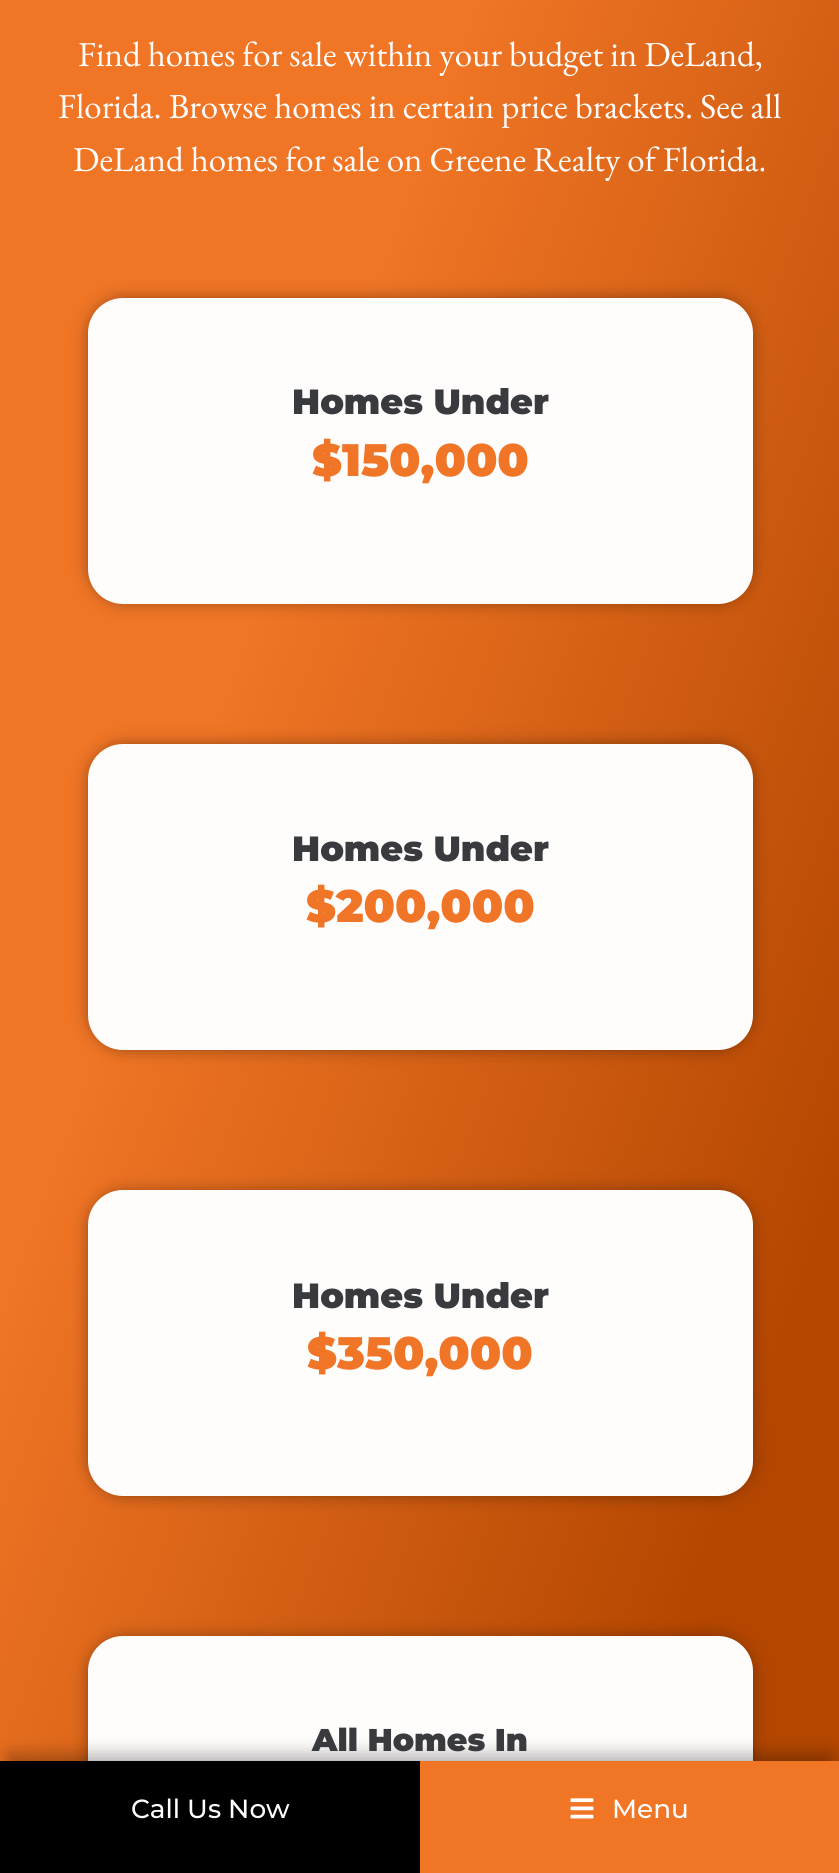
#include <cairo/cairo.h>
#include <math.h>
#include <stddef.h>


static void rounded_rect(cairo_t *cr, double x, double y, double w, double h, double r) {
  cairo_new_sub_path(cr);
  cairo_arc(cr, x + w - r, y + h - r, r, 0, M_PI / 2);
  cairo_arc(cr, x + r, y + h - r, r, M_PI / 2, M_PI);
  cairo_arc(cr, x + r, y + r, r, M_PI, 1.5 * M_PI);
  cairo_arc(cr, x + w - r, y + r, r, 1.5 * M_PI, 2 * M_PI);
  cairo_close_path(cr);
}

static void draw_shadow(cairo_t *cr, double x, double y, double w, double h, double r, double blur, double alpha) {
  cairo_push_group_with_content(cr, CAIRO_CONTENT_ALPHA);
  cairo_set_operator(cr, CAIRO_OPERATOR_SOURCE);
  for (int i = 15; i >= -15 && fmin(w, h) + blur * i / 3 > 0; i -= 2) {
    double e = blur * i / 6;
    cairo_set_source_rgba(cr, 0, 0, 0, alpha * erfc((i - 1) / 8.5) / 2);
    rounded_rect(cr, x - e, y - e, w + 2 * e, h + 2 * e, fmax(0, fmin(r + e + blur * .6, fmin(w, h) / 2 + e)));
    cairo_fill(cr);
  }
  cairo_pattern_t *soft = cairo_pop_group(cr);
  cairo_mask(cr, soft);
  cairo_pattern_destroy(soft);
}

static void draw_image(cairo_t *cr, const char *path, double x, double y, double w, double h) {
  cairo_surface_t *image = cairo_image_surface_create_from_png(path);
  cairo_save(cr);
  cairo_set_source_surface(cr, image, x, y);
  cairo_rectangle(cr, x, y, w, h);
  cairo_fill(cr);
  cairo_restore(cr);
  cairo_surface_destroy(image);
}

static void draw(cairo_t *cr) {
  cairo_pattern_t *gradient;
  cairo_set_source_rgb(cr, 1, 1, 1);
  cairo_paint(cr);
  gradient = cairo_pattern_create_linear(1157, 1157, -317, 621);
  cairo_pattern_add_color_stop_rgba(gradient, 0.17, 179 / 255.0, 70 / 255.0, 0, 1);
  cairo_pattern_add_color_stop_rgba(gradient, 0.66, 240 / 255.0, 117 / 255.0, 37 / 255.0, 1);
  cairo_set_source(cr, gradient);
  cairo_pattern_destroy(gradient);
  cairo_rectangle(cr, 0, 0, 839, 1761);
  cairo_fill(cr);
  cairo_set_source_rgb(cr, 0, 0, 0);
  draw_shadow(cr, 91, 301, 658, 299, 32, 9, 0.5);
  cairo_set_source_rgb(cr, 1, 252 / 255.0, 252 / 255.0);
  rounded_rect(cr, 88, 298, 665, 306, 35);
  cairo_fill(cr);
  cairo_set_source_rgb(cr, 0, 0, 0);
  draw_shadow(cr, 91, 747, 658, 300, 32, 9, 0.5);
  cairo_set_source_rgb(cr, 1, 252 / 255.0, 252 / 255.0);
  rounded_rect(cr, 88, 744, 665, 306, 35);
  cairo_fill(cr);
  cairo_set_source_rgb(cr, 0, 0, 0);
  draw_shadow(cr, 91, 1194, 658, 299, 32, 9, 0.5);
  cairo_set_source_rgb(cr, 1, 252 / 255.0, 252 / 255.0);
  rounded_rect(cr, 88, 1190, 665, 306, 35);
  cairo_fill(cr);
  cairo_set_source_rgb(cr, 0, 0, 0);
  draw_shadow(cr, 91, 1640, 658, 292, 32, 9, 0.5);
  cairo_set_source_rgb(cr, 1, 252 / 255.0, 252 / 255.0);
  rounded_rect(cr, 88, 1636, 665, 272, 35);
  cairo_fill(cr);
  cairo_set_source_rgb(cr, 0, 0, 0);
  draw_shadow(cr, 9, 1755, 822, 97, 0, 9, 0.32);
  cairo_set_source_rgb(cr, 0, 0, 0);
  cairo_rectangle(cr, 0, 1761, 420, 112);
  cairo_fill(cr);
  cairo_set_source_rgb(cr, 240 / 255.0, 117 / 255.0, 37 / 255.0);
  cairo_rectangle(cr, 420, 1761, 419, 112);
  cairo_fill(cr);
  draw_image(cr, "images/1.png", 570, 1798, 24, 21);
  cairo_select_font_face(cr, "EB Garamond", CAIRO_FONT_SLANT_NORMAL, CAIRO_FONT_WEIGHT_NORMAL);
  cairo_set_font_size(cr, 35);
  cairo_set_source_rgb(cr, 1, 252 / 255.0, 252 / 255.0);
  cairo_move_to(cr, 78, 66);
  cairo_show_text(cr, "Find homes for sale within your budget in DeLand,");
  cairo_move_to(cr, 58, 118);
  cairo_show_text(cr, "Florida. Browse homes in certain price brackets. See all");
  cairo_move_to(cr, 73, 171);
  cairo_show_text(cr, "DeLand homes for sale on Greene Realty of Florida.");
  cairo_select_font_face(cr, "Montserrat Black", CAIRO_FONT_SLANT_NORMAL, CAIRO_FONT_WEIGHT_NORMAL);
  cairo_set_source_rgb(cr, 57 / 255.0, 58 / 255.0, 62 / 255.0);
  cairo_move_to(cr, 292, 414);
  cairo_show_text(cr, "Homes Under");
  cairo_set_font_size(cr, 45.5);
  cairo_set_source_rgb(cr, 240 / 255.0, 117 / 255.0, 38 / 255.0);
  cairo_move_to(cr, 312, 476);
  cairo_show_text(cr, "$150,000");
  cairo_set_font_size(cr, 35);
  cairo_set_source_rgb(cr, 57 / 255.0, 58 / 255.0, 62 / 255.0);
  cairo_move_to(cr, 292, 861);
  cairo_show_text(cr, "Homes Under");
  cairo_set_font_size(cr, 45.5);
  cairo_set_source_rgb(cr, 240 / 255.0, 117 / 255.0, 38 / 255.0);
  cairo_move_to(cr, 306, 922);
  cairo_show_text(cr, "$200,000");
  cairo_set_font_size(cr, 35);
  cairo_set_source_rgb(cr, 57 / 255.0, 58 / 255.0, 62 / 255.0);
  cairo_move_to(cr, 292, 1308);
  cairo_show_text(cr, "Homes Under");
  cairo_set_font_size(cr, 45.5);
  cairo_set_source_rgb(cr, 240 / 255.0, 117 / 255.0, 38 / 255.0);
  cairo_move_to(cr, 307, 1369);
  cairo_show_text(cr, "$350,000");
  cairo_set_font_size(cr, 31.5);
  cairo_set_source_rgb(cr, 57 / 255.0, 58 / 255.0, 62 / 255.0);
  cairo_move_to(cr, 312, 1751);
  cairo_show_text(cr, "All Homes In");
  cairo_select_font_face(cr, "Montserrat Medium", CAIRO_FONT_SLANT_NORMAL, CAIRO_FONT_WEIGHT_NORMAL);
  cairo_set_font_size(cr, 26.25);
  cairo_set_source_rgb(cr, 1, 252 / 255.0, 252 / 255.0);
  cairo_move_to(cr, 131, 1818);
  cairo_show_text(cr, "Call Us Now");
  cairo_move_to(cr, 612, 1818);
  cairo_show_text(cr, "Menu");
}

int main(void) {
  cairo_surface_t *surface = cairo_image_surface_create(CAIRO_FORMAT_RGB24, 839, 1873);
  cairo_t *cr = cairo_create(surface);
  cairo_font_options_t *options = cairo_font_options_create();
  cairo_font_options_set_hint_metrics(options, CAIRO_HINT_METRICS_OFF);
  cairo_font_options_set_hint_style(options, CAIRO_HINT_STYLE_NONE);
  cairo_set_font_options(cr, options);
  cairo_set_miter_limit(cr, 4);
  draw(cr);
  cairo_surface_write_to_png(surface, "out.png");
  cairo_font_options_destroy(options);
  cairo_destroy(cr);
  cairo_surface_destroy(surface);
  return 0;
}
